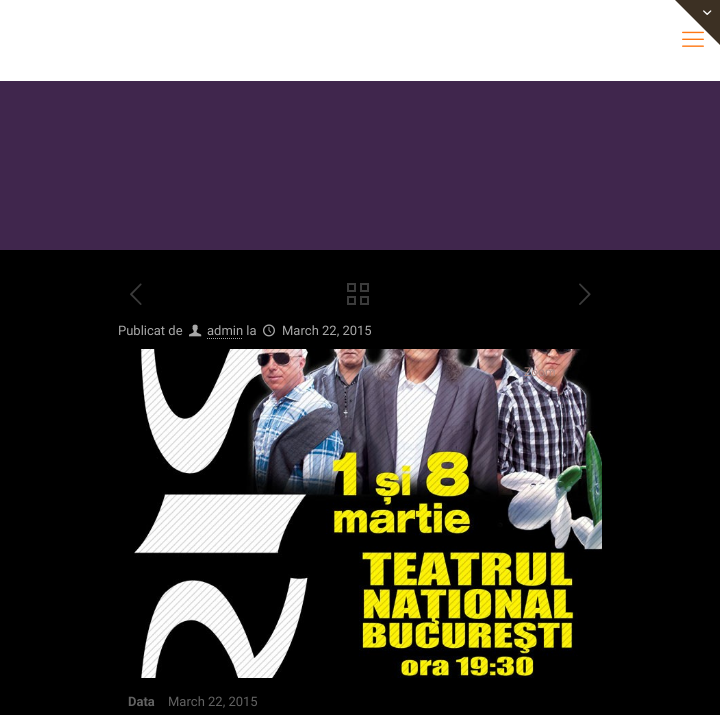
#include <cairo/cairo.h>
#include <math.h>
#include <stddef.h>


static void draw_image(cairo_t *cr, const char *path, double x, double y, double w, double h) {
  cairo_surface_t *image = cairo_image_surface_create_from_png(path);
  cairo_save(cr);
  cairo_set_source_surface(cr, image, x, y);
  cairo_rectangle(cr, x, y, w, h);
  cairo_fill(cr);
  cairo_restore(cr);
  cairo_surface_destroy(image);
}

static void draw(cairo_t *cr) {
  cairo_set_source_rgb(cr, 0, 0, 0);
  cairo_paint(cr);
  cairo_set_source_rgb(cr, 1, 1, 1);
  cairo_rectangle(cr, 0, 0, 720, 81);
  cairo_fill(cr);
  draw_image(cr, "images/2.png", 682, 31, 22, 16);
  cairo_set_source_rgb(cr, 60 / 255.0, 48 / 255.0, 35 / 255.0);
  cairo_new_path(cr);
  cairo_move_to(cr, 720, 0);
  cairo_line_to(cr, 720, 45);
  cairo_line_to(cr, 675, 0);
  cairo_close_path(cr);
  cairo_fill(cr);
  draw_image(cr, "images/1.png", 703, 10, 9, 5);
  cairo_set_source_rgb(cr, 64 / 255.0, 38 / 255.0, 77 / 255.0);
  cairo_rectangle(cr, 0, 81, 720, 169);
  cairo_fill(cr);
  draw_image(cr, "images/3.png", 130, 283, 12, 22);
  draw_image(cr, "images/4.png", 347, 283, 22, 22);
  draw_image(cr, "images/5.png", 579, 283, 12, 22);
  draw_image(cr, "images/6.png", 189, 324, 13, 13);
  cairo_new_path(cr);
  cairo_move_to(cr, 207, 338.5);
  cairo_line_to(cr, 243, 338.5);
  cairo_set_source_rgb(cr, 168 / 255.0, 168 / 255.0, 168 / 255.0);
  cairo_set_line_width(cr, 1);
  cairo_set_dash(cr, (double[]){1, 1}, 2, 0);
  cairo_stroke(cr);
  draw_image(cr, "images/7.png", 263, 324, 12, 13);
  draw_image(cr, "images/8.png", 134, 349, 468, 329);
  cairo_select_font_face(cr, "Roboto", CAIRO_FONT_SLANT_NORMAL, CAIRO_FONT_WEIGHT_NORMAL);
  cairo_set_font_size(cr, 13);
  cairo_move_to(cr, 118, 335);
  cairo_show_text(cr, "Publicat de");
  cairo_move_to(cr, 207, 335);
  cairo_show_text(cr, "admin la");
  cairo_move_to(cr, 282, 335);
  cairo_show_text(cr, "March 22, 2015");
  cairo_set_font_size(cr, 12);
  cairo_set_source_rgb(cr, 171 / 255.0, 136 / 255.0, 132 / 255.0);
  cairo_move_to(cr, 524, 376);
  cairo_show_text(cr, "Zoom");
  cairo_select_font_face(cr, "Roboto", CAIRO_FONT_SLANT_NORMAL, CAIRO_FONT_WEIGHT_BOLD);
  cairo_set_font_size(cr, 13);
  cairo_set_source_rgb(cr, 98 / 255.0, 98 / 255.0, 98 / 255.0);
  cairo_move_to(cr, 128, 706);
  cairo_show_text(cr, "Data");
  cairo_select_font_face(cr, "Roboto", CAIRO_FONT_SLANT_NORMAL, CAIRO_FONT_WEIGHT_NORMAL);
  cairo_move_to(cr, 168, 706);
  cairo_show_text(cr, "March 22, 2015");
}

int main(void) {
  cairo_surface_t *surface = cairo_image_surface_create(CAIRO_FORMAT_RGB24, 720, 715);
  cairo_t *cr = cairo_create(surface);
  cairo_font_options_t *options = cairo_font_options_create();
  cairo_font_options_set_hint_metrics(options, CAIRO_HINT_METRICS_OFF);
  cairo_font_options_set_hint_style(options, CAIRO_HINT_STYLE_NONE);
  cairo_set_font_options(cr, options);
  cairo_set_miter_limit(cr, 4);
  draw(cr);
  cairo_surface_write_to_png(surface, "out.png");
  cairo_font_options_destroy(options);
  cairo_destroy(cr);
  cairo_surface_destroy(surface);
  return 0;
}
